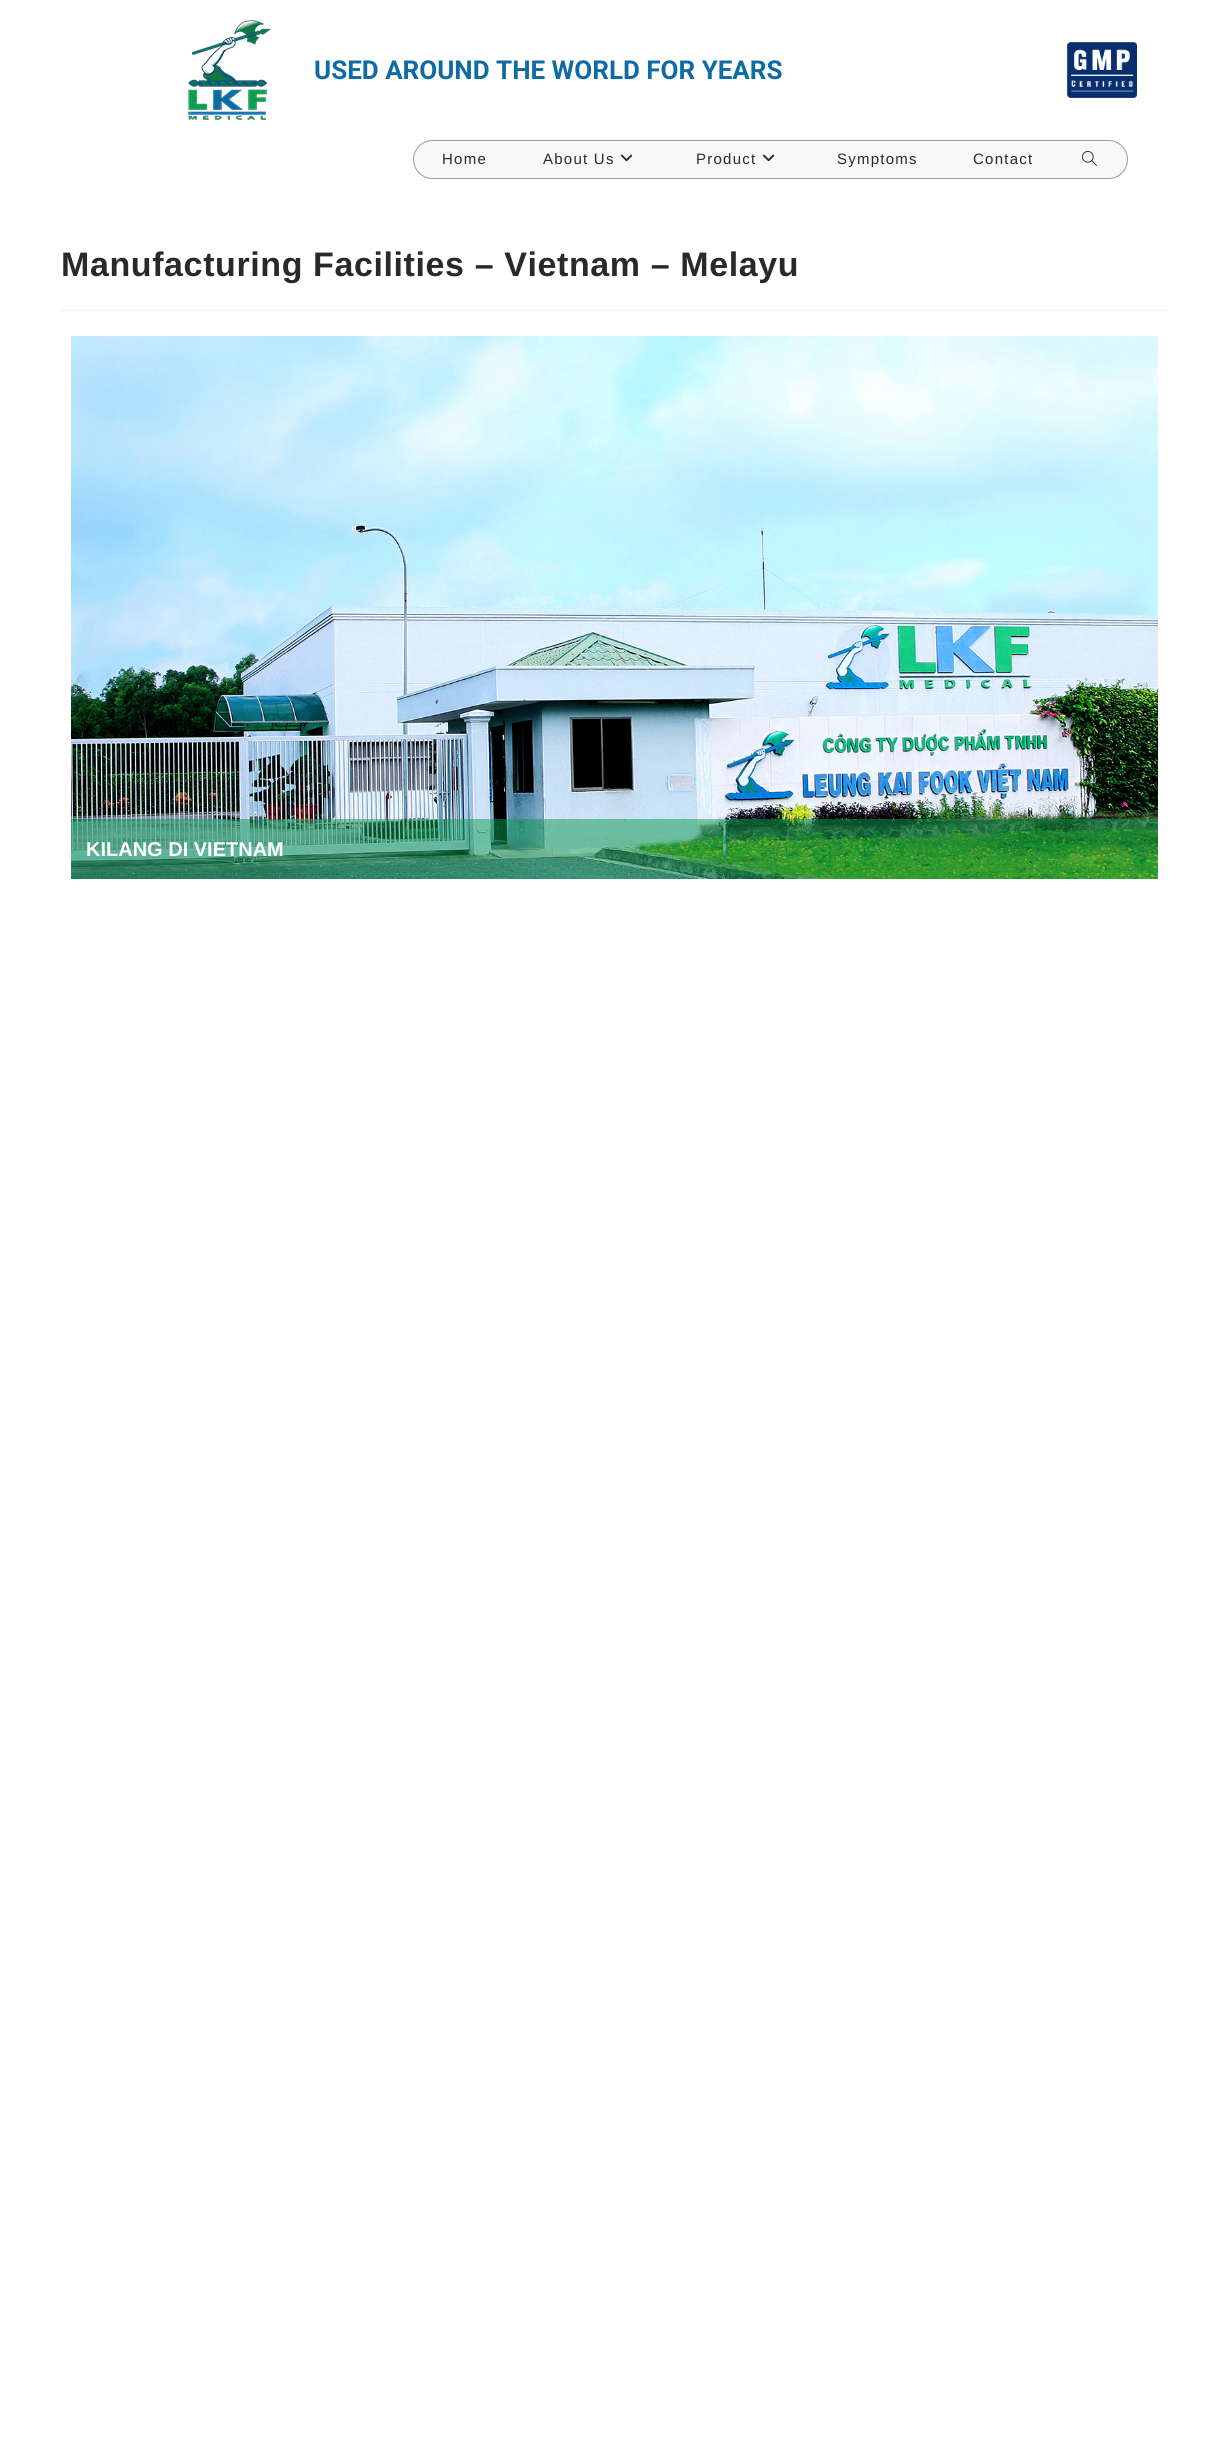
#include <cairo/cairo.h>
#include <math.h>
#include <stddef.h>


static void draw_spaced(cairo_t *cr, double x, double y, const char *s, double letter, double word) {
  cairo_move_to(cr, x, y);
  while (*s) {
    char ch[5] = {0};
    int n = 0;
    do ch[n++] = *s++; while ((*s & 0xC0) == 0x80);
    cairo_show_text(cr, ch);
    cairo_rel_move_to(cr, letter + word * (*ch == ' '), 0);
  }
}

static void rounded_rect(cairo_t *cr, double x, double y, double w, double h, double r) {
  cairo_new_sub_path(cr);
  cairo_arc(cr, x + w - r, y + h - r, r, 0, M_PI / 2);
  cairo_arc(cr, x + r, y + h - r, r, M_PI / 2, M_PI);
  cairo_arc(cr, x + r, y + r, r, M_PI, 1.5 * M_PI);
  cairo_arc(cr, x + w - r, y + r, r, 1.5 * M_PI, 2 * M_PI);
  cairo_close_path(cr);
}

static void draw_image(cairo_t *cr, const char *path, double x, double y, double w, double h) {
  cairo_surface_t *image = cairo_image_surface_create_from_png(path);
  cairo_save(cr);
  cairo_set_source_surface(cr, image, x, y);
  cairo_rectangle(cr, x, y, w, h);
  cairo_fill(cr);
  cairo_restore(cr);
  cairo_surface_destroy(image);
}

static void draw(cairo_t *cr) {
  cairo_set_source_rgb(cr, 1, 1, 1);
  cairo_paint(cr);
  draw_image(cr, "images/1.png", 188, 20, 83, 100);
  draw_image(cr, "images/2.png", 1067, 42, 70, 56);
  cairo_set_source_rgb(cr, 248 / 255.0, 248 / 255.0, 248 / 255.0);
  rounded_rect(cr, 413.5, 140.5, 714, 38, 19);
  cairo_fill_preserve(cr);
  cairo_set_source_rgb(cr, 157 / 255.0, 157 / 255.0, 157 / 255.0);
  cairo_set_line_width(cr, 1);
  cairo_stroke(cr);
  draw_image(cr, "images/3.png", 621, 154, 12, 8);
  draw_image(cr, "images/3.png", 763, 154, 12, 8);
  draw_image(cr, "images/4.png", 1082, 150, 15, 16);
  cairo_set_source_rgb(cr, 241 / 255.0, 241 / 255.0, 241 / 255.0);
  cairo_rectangle(cr, 61, 310, 1107, 1);
  cairo_fill(cr);
  draw_image(cr, "images/5.png", 71, 336, 1087, 543);
  cairo_set_source_rgba(cr, 14 / 255.0, 156 / 255.0, 82 / 255.0, 0.51);
  cairo_rectangle(cr, 71, 819, 1087, 60);
  cairo_fill(cr);
  cairo_select_font_face(cr, "Roboto", CAIRO_FONT_SLANT_NORMAL, CAIRO_FONT_WEIGHT_BOLD);
  cairo_set_font_size(cr, 26);
  cairo_set_source_rgb(cr, 14 / 255.0, 107 / 255.0, 163 / 255.0);
  cairo_move_to(cr, 314, 79);
  cairo_show_text(cr, "USED AROUND THE WORLD FOR YEARS");
  cairo_select_font_face(cr, "Liberation Sans", CAIRO_FONT_SLANT_NORMAL, CAIRO_FONT_WEIGHT_NORMAL);
  cairo_set_font_size(cr, 15);
  cairo_set_source_rgb(cr, 41 / 255.0, 41 / 255.0, 41 / 255.0);
  draw_spaced(cr, 442, 164, "Home", 1.25, 0);
  draw_spaced(cr, 543, 164, "About Us", 1.25, 0);
  draw_spaced(cr, 696, 164, "Product", 1.25, 0);
  draw_spaced(cr, 837, 164, "Symptoms", 1.25, 0);
  draw_spaced(cr, 973, 164, "Contact", 1.25, 0);
  cairo_select_font_face(cr, "Liberation Sans", CAIRO_FONT_SLANT_NORMAL, CAIRO_FONT_WEIGHT_BOLD);
  cairo_set_font_size(cr, 34);
  draw_spaced(cr, 61, 276, "Manufacturing Facilities – Vietnam – Melayu", 0.6, 0);
  cairo_set_font_size(cr, 20);
  cairo_set_source_rgb(cr, 1, 1, 1);
  cairo_move_to(cr, 86, 856);
  cairo_show_text(cr, "KILANG DI VIETNAM");
}

int main(void) {
  cairo_surface_t *surface = cairo_image_surface_create(CAIRO_FORMAT_RGB24, 1229, 2445);
  cairo_t *cr = cairo_create(surface);
  cairo_font_options_t *options = cairo_font_options_create();
  cairo_font_options_set_hint_metrics(options, CAIRO_HINT_METRICS_OFF);
  cairo_font_options_set_hint_style(options, CAIRO_HINT_STYLE_NONE);
  cairo_set_font_options(cr, options);
  cairo_set_miter_limit(cr, 4);
  draw(cr);
  cairo_surface_write_to_png(surface, "out.png");
  cairo_font_options_destroy(options);
  cairo_destroy(cr);
  cairo_surface_destroy(surface);
  return 0;
}
